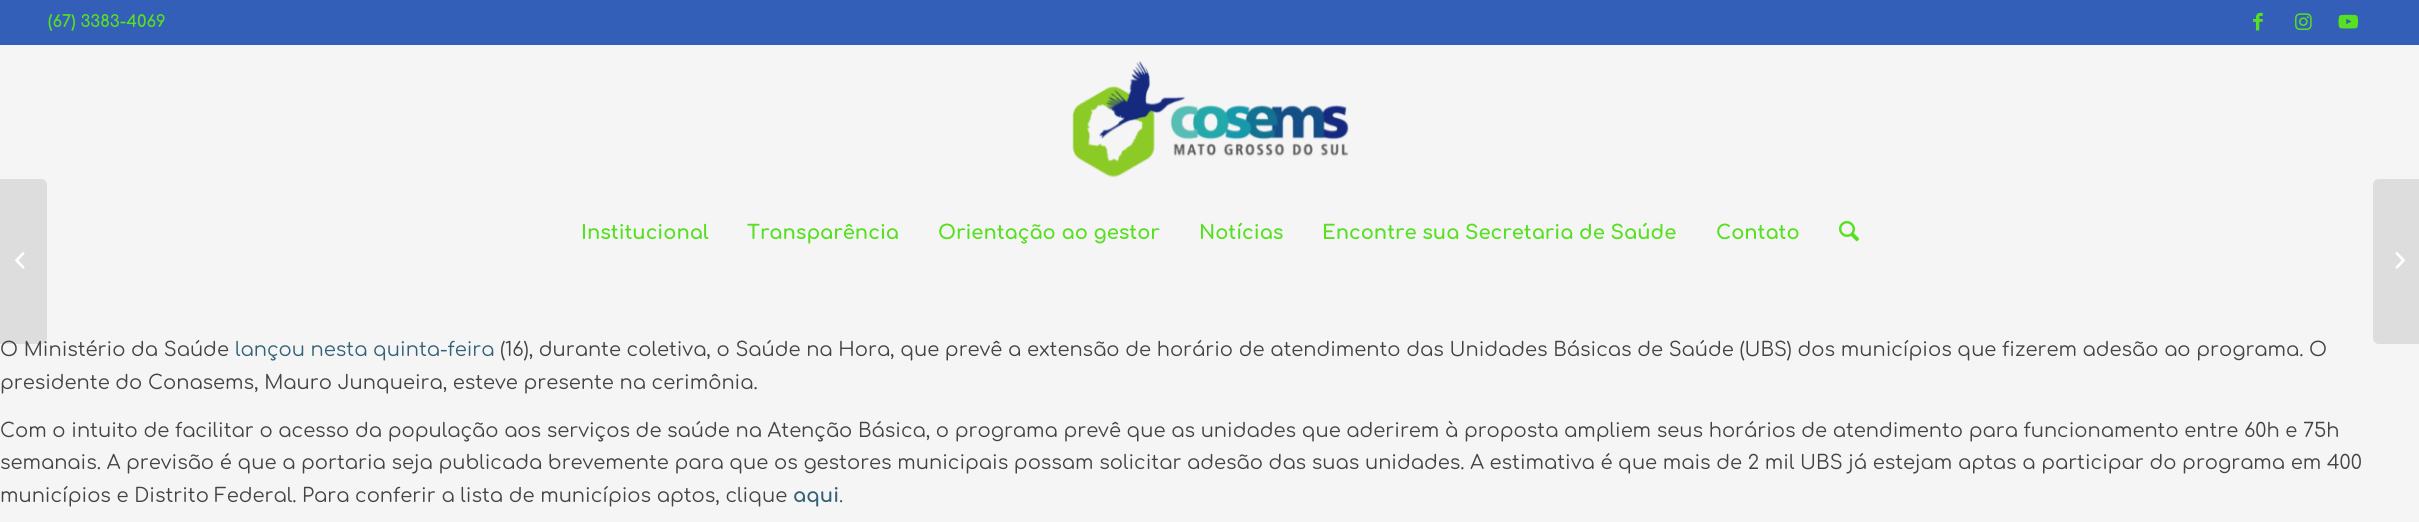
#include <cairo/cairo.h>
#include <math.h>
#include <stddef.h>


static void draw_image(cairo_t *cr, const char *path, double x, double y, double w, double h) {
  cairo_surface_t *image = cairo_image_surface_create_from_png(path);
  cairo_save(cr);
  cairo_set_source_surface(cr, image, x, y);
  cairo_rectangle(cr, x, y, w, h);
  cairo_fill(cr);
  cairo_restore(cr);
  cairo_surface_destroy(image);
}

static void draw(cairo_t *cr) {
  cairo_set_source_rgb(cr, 245 / 255.0, 245 / 255.0, 245 / 255.0);
  cairo_paint(cr);
  cairo_set_source_rgb(cr, 51 / 255.0, 95 / 255.0, 184 / 255.0);
  cairo_rectangle(cr, 0, 0, 2419, 45);
  cairo_fill(cr);
  draw_image(cr, "images/1.png", 2253, 12, 10, 19);
  draw_image(cr, "images/2.png", 2295, 13, 17, 18);
  draw_image(cr, "images/3.png", 2338, 14, 20, 15);
  draw_image(cr, "images/4.png", 1072, 61, 277, 117);
  draw_image(cr, "images/5.png", 1839, 221, 21, 21);
  cairo_set_source_rgba(cr, 0, 0, 0, 0.1);
  cairo_new_path(cr);
  cairo_move_to(cr, 0, 179);
  cairo_line_to(cr, 41, 179);
  cairo_curve_to(cr, 44.5, 179, 47, 181.5, 47, 185);
  cairo_line_to(cr, 47, 338);
  cairo_curve_to(cr, 47, 341.5, 44.5, 344, 41, 344);
  cairo_line_to(cr, 0, 344);
  cairo_close_path(cr);
  cairo_fill(cr);
  draw_image(cr, "images/6.png", 15, 252, 10, 17);
  cairo_set_source_rgb(cr, 221 / 255.0, 221 / 255.0, 221 / 255.0);
  cairo_new_path(cr);
  cairo_move_to(cr, 2379, 179);
  cairo_line_to(cr, 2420, 179);
  cairo_line_to(cr, 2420, 344);
  cairo_line_to(cr, 2379, 344);
  cairo_curve_to(cr, 2375.5, 344, 2373, 341.5, 2373, 338);
  cairo_line_to(cr, 2373, 185);
  cairo_curve_to(cr, 2373, 181.5, 2375.5, 179, 2379, 179);
  cairo_close_path(cr);
  cairo_fill(cr);
  draw_image(cr, "images/7.png", 2395, 252, 10, 17);
  cairo_select_font_face(cr, "Comfortaa", CAIRO_FONT_SLANT_NORMAL, CAIRO_FONT_WEIGHT_BOLD);
  cairo_set_font_size(cr, 16.5);
  cairo_set_source_rgb(cr, 86 / 255.0, 224 / 255.0, 32 / 255.0);
  cairo_move_to(cr, 48, 27);
  cairo_show_text(cr, "(67) 3383-4069");
  cairo_set_font_size(cr, 19.5);
  cairo_move_to(cr, 581, 239);
  cairo_show_text(cr, "Institucional");
  cairo_move_to(cr, 747, 239);
  cairo_show_text(cr, "Transparência");
  cairo_move_to(cr, 938, 239);
  cairo_show_text(cr, "Orientação ao gestor");
  cairo_move_to(cr, 1199, 239);
  cairo_show_text(cr, "Notícias");
  cairo_move_to(cr, 1322, 239);
  cairo_show_text(cr, "Encontre sua Secretaria de Saúde");
  cairo_move_to(cr, 1716, 239);
  cairo_show_text(cr, "Contato");
  cairo_select_font_face(cr, "Comfortaa", CAIRO_FONT_SLANT_NORMAL, CAIRO_FONT_WEIGHT_NORMAL);
  cairo_set_source_rgb(cr, 68 / 255.0, 68 / 255.0, 68 / 255.0);
  cairo_move_to(cr, 0, 356);
  cairo_show_text(cr, "O Ministério da Saúde");
  cairo_set_source_rgb(cr, 50 / 255.0, 98 / 255.0, 118 / 255.0);
  cairo_move_to(cr, 235, 356);
  cairo_show_text(cr, "lançou nesta quinta-feira");
  cairo_set_source_rgb(cr, 68 / 255.0, 68 / 255.0, 68 / 255.0);
  cairo_move_to(cr, 500, 356);
  cairo_show_text(cr, "(16), durante coletiva, o Saúde na Hora, que prevê a extensão de horário de atendimento das Unidades Básicas de Saúde (UBS) dos municípios que fizerem adesão ao programa. O");
  cairo_move_to(cr, 0, 389);
  cairo_show_text(cr, "presidente do Conasems, Mauro Junqueira, esteve presente na cerimônia.");
  cairo_move_to(cr, 0, 437);
  cairo_show_text(cr, "Com o intuito de facilitar o acesso da população aos serviços de saúde na Atenção Básica, o programa prevê que as unidades que aderirem à proposta ampliem seus horários de atendimento para funcionamento entre 60h e 75h");
  cairo_move_to(cr, 0, 469);
  cairo_show_text(cr, "semanais. A previsão é que a portaria seja publicada brevemente para que os gestores municipais possam solicitar adesão das suas unidades. A estimativa é que mais de 2 mil UBS já estejam aptas a participar do programa em 400");
  cairo_move_to(cr, 0, 502);
  cairo_show_text(cr, "municípios e Distrito Federal. Para conferir a lista de municípios aptos, clique");
  cairo_select_font_face(cr, "Comfortaa", CAIRO_FONT_SLANT_NORMAL, CAIRO_FONT_WEIGHT_BOLD);
  cairo_set_source_rgb(cr, 50 / 255.0, 98 / 255.0, 118 / 255.0);
  cairo_move_to(cr, 793, 502);
  cairo_show_text(cr, "aqui");
  cairo_select_font_face(cr, "Comfortaa", CAIRO_FONT_SLANT_NORMAL, CAIRO_FONT_WEIGHT_NORMAL);
  cairo_move_to(cr, 839, 502);
  cairo_show_text(cr, ".");
}

int main(void) {
  cairo_surface_t *surface = cairo_image_surface_create(CAIRO_FORMAT_RGB24, 2419, 522);
  cairo_t *cr = cairo_create(surface);
  cairo_font_options_t *options = cairo_font_options_create();
  cairo_font_options_set_hint_metrics(options, CAIRO_HINT_METRICS_OFF);
  cairo_font_options_set_hint_style(options, CAIRO_HINT_STYLE_NONE);
  cairo_set_font_options(cr, options);
  cairo_set_miter_limit(cr, 4);
  draw(cr);
  cairo_surface_write_to_png(surface, "out.png");
  cairo_font_options_destroy(options);
  cairo_destroy(cr);
  cairo_surface_destroy(surface);
  return 0;
}
